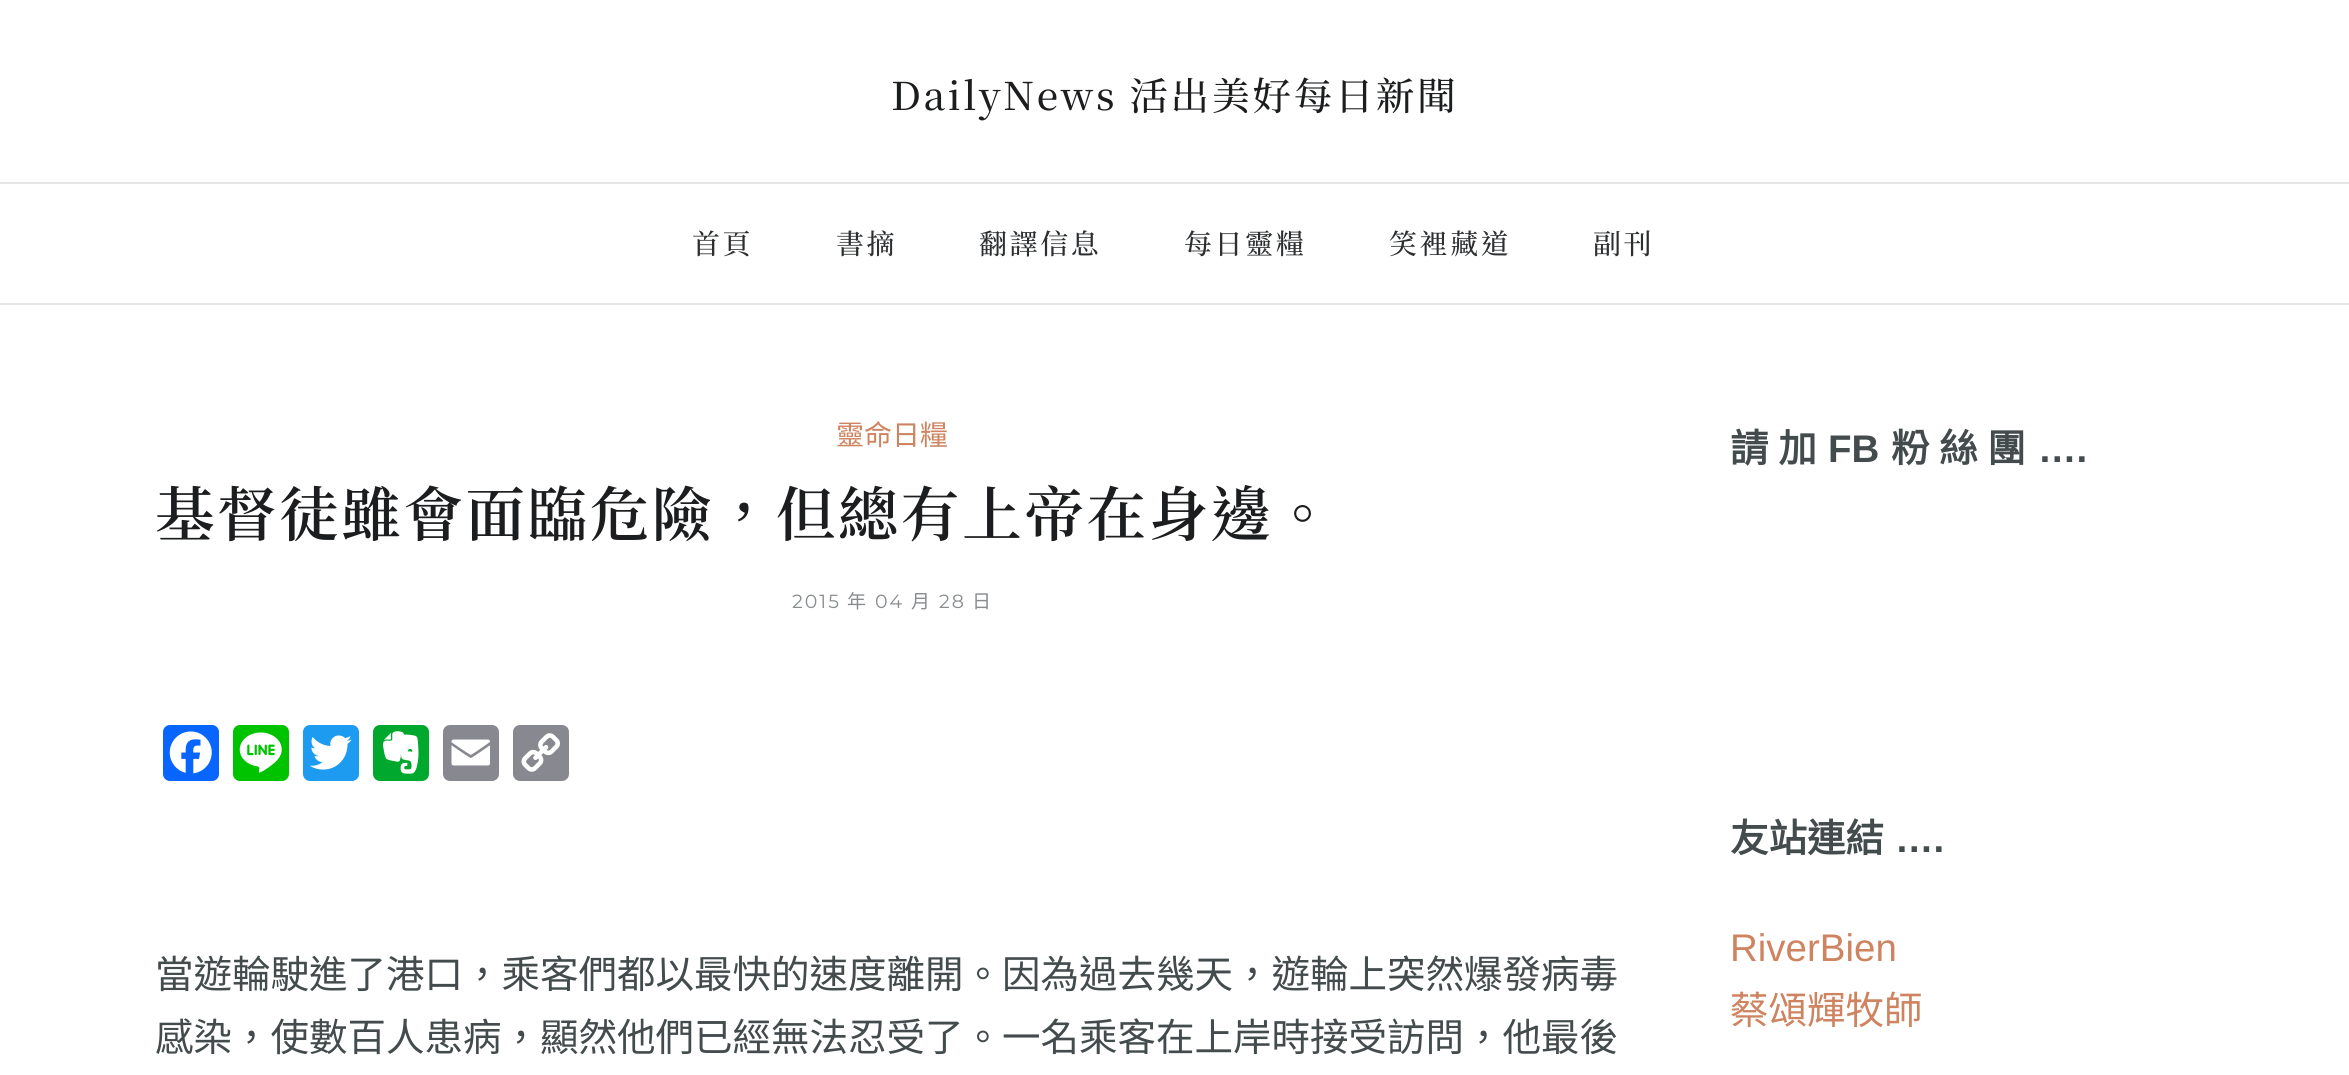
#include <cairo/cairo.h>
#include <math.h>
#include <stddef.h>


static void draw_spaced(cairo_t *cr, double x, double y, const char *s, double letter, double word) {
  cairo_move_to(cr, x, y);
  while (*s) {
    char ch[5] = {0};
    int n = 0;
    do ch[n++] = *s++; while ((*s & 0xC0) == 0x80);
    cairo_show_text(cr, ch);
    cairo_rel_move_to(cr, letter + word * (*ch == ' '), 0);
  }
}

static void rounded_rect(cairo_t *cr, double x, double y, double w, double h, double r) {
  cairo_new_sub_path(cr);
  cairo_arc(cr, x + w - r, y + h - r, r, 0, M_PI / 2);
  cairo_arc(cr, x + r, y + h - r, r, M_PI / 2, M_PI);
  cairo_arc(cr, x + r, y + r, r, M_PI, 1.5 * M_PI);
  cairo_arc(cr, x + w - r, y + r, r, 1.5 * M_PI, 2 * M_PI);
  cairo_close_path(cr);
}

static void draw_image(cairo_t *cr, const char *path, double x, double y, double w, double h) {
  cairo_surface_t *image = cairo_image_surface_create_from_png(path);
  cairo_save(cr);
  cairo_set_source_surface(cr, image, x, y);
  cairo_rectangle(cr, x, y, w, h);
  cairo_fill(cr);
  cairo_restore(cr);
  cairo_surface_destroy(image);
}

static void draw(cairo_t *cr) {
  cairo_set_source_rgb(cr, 1, 1, 1);
  cairo_paint(cr);
  cairo_set_source_rgb(cr, 229 / 255.0, 230 / 255.0, 232 / 255.0);
  cairo_rectangle(cr, 0, 303, 2349, 2);
  cairo_fill(cr);
  cairo_rectangle(cr, 0, 182, 2349, 2);
  cairo_fill(cr);
  cairo_set_source_rgb(cr, 8 / 255.0, 102 / 255.0, 1);
  rounded_rect(cr, 163, 725, 56, 56, 7);
  cairo_fill(cr);
  draw_image(cr, "images/1.png", 169, 731, 43, 43);
  cairo_set_source_rgb(cr, 0, 195 / 255.0, 0);
  rounded_rect(cr, 233, 725, 56, 56, 7);
  cairo_fill(cr);
  draw_image(cr, "images/2.png", 239, 732, 43, 41);
  cairo_set_source_rgb(cr, 29 / 255.0, 155 / 255.0, 240 / 255.0);
  rounded_rect(cr, 303, 725, 56, 56, 7);
  cairo_fill(cr);
  draw_image(cr, "images/3.png", 310, 735, 42, 35);
  cairo_set_source_rgb(cr, 0, 168 / 255.0, 45 / 255.0);
  rounded_rect(cr, 373, 725, 56, 56, 7);
  cairo_fill(cr);
  draw_image(cr, "images/4.png", 383, 731, 36, 43);
  cairo_set_source_rgb(cr, 136 / 255.0, 137 / 255.0, 144 / 255.0);
  rounded_rect(cr, 443, 725, 56, 56, 7);
  cairo_fill(cr);
  draw_image(cr, "images/5.png", 451, 739, 39, 27);
  rounded_rect(cr, 513, 725, 56, 56, 7);
  cairo_fill(cr);
  draw_image(cr, "images/6.png", 521, 733, 39, 39);
  cairo_select_font_face(cr, "Noto Serif CJK TC Medium", CAIRO_FONT_SLANT_NORMAL, CAIRO_FONT_WEIGHT_NORMAL);
  cairo_set_font_size(cr, 38.5);
  cairo_set_source_rgb(cr, 28 / 255.0, 29 / 255.0, 31 / 255.0);
  draw_spaced(cr, 891, 110, "DailyNews 活出美好每日新聞", 2.6, 0);
  cairo_set_font_size(cr, 28);
  cairo_set_source_rgb(cr, 44 / 255.0, 46 / 255.0, 48 / 255.0);
  draw_spaced(cr, 692, 254, "首頁", 2.6, 0);
  draw_spaced(cr, 836, 254, "書摘", 2.6, 0);
  draw_spaced(cr, 979, 254, "翻譯信息", 2.6, 0);
  draw_spaced(cr, 1184, 254, "每日靈糧", 2.6, 0);
  draw_spaced(cr, 1389, 254, "笑裡藏道", 2.6, 0);
  draw_spaced(cr, 1593, 254, "副刊", 2.6, 0);
  cairo_select_font_face(cr, "Noto Sans CJK TC", CAIRO_FONT_SLANT_NORMAL, CAIRO_FONT_WEIGHT_NORMAL);
  cairo_set_source_rgb(cr, 206 / 255.0, 132 / 255.0, 96 / 255.0);
  cairo_move_to(cr, 836, 445);
  cairo_show_text(cr, "靈命日糧");
  cairo_select_font_face(cr, "Noto Serif CJK TC SemiBold", CAIRO_FONT_SLANT_NORMAL, CAIRO_FONT_WEIGHT_NORMAL);
  cairo_set_font_size(cr, 59.5);
  cairo_set_source_rgb(cr, 28 / 255.0, 29 / 255.0, 31 / 255.0);
  draw_spaced(cr, 155, 536, "基督徒雖會面臨危險，但總有上帝在身邊。", 2.6, 0);
  cairo_select_font_face(cr, "Montserrat", CAIRO_FONT_SLANT_NORMAL, CAIRO_FONT_WEIGHT_NORMAL);
  cairo_set_font_size(cr, 19);
  cairo_set_source_rgb(cr, 136 / 255.0, 140 / 255.0, 142 / 255.0);
  draw_spaced(cr, 792, 608, "2015", 2, 0);
  cairo_select_font_face(cr, "Noto Sans CJK TC", CAIRO_FONT_SLANT_NORMAL, CAIRO_FONT_WEIGHT_NORMAL);
  draw_spaced(cr, 847, 608, "年", 2, 0);
  cairo_select_font_face(cr, "Montserrat", CAIRO_FONT_SLANT_NORMAL, CAIRO_FONT_WEIGHT_NORMAL);
  draw_spaced(cr, 875, 608, "04", 2, 0);
  cairo_select_font_face(cr, "Noto Sans CJK TC", CAIRO_FONT_SLANT_NORMAL, CAIRO_FONT_WEIGHT_NORMAL);
  draw_spaced(cr, 911, 608, "月", 2, 0);
  cairo_select_font_face(cr, "Montserrat", CAIRO_FONT_SLANT_NORMAL, CAIRO_FONT_WEIGHT_NORMAL);
  draw_spaced(cr, 939, 608, "28", 2, 0);
  cairo_select_font_face(cr, "Noto Sans CJK TC", CAIRO_FONT_SLANT_NORMAL, CAIRO_FONT_WEIGHT_NORMAL);
  draw_spaced(cr, 972, 608, "日", 2, 0);
  cairo_set_font_size(cr, 38.5);
  cairo_set_source_rgb(cr, 68 / 255.0, 75 / 255.0, 77 / 255.0);
  cairo_move_to(cr, 155, 988);
  cairo_show_text(cr, "當遊輪駛進了港口，乘客們都以最快的速度離開。因為過去幾天，遊輪上突然爆發病毒");
  cairo_move_to(cr, 155, 1051);
  cairo_show_text(cr, "感染，使數百人患病，顯然他們已經無法忍受了。一名乘客在上岸時接受訪問，他最後");
  cairo_select_font_face(cr, "Noto Sans CJK TC", CAIRO_FONT_SLANT_NORMAL, CAIRO_FONT_WEIGHT_BOLD);
  draw_spaced(cr, 1730, 462, "請 加", 0, 1);
  cairo_select_font_face(cr, "Liberation Sans", CAIRO_FONT_SLANT_NORMAL, CAIRO_FONT_WEIGHT_BOLD);
  cairo_move_to(cr, 1828, 462);
  cairo_show_text(cr, "FB");
  cairo_select_font_face(cr, "Noto Sans CJK TC", CAIRO_FONT_SLANT_NORMAL, CAIRO_FONT_WEIGHT_BOLD);
  draw_spaced(cr, 1891, 462, "粉 絲 團", 0, 1);
  cairo_select_font_face(cr, "Liberation Sans", CAIRO_FONT_SLANT_NORMAL, CAIRO_FONT_WEIGHT_BOLD);
  cairo_move_to(cr, 2038, 462);
  cairo_show_text(cr, "….");
  cairo_select_font_face(cr, "Noto Sans CJK TC", CAIRO_FONT_SLANT_NORMAL, CAIRO_FONT_WEIGHT_BOLD);
  cairo_move_to(cr, 1730, 852);
  cairo_show_text(cr, "友站連結");
  cairo_select_font_face(cr, "Liberation Sans", CAIRO_FONT_SLANT_NORMAL, CAIRO_FONT_WEIGHT_BOLD);
  cairo_move_to(cr, 1895, 852);
  cairo_show_text(cr, "….");
  cairo_select_font_face(cr, "Liberation Sans", CAIRO_FONT_SLANT_NORMAL, CAIRO_FONT_WEIGHT_NORMAL);
  cairo_set_source_rgb(cr, 206 / 255.0, 132 / 255.0, 96 / 255.0);
  cairo_move_to(cr, 1730, 961);
  cairo_show_text(cr, "RiverBien");
  cairo_select_font_face(cr, "Noto Sans CJK TC", CAIRO_FONT_SLANT_NORMAL, CAIRO_FONT_WEIGHT_NORMAL);
  cairo_move_to(cr, 1730, 1024);
  cairo_show_text(cr, "蔡頌輝牧師");
}

int main(void) {
  cairo_surface_t *surface = cairo_image_surface_create(CAIRO_FORMAT_RGB24, 2349, 1075);
  cairo_t *cr = cairo_create(surface);
  cairo_font_options_t *options = cairo_font_options_create();
  cairo_font_options_set_hint_metrics(options, CAIRO_HINT_METRICS_OFF);
  cairo_font_options_set_hint_style(options, CAIRO_HINT_STYLE_NONE);
  cairo_set_font_options(cr, options);
  cairo_set_miter_limit(cr, 4);
  draw(cr);
  cairo_surface_write_to_png(surface, "out.png");
  cairo_font_options_destroy(options);
  cairo_destroy(cr);
  cairo_surface_destroy(surface);
  return 0;
}
